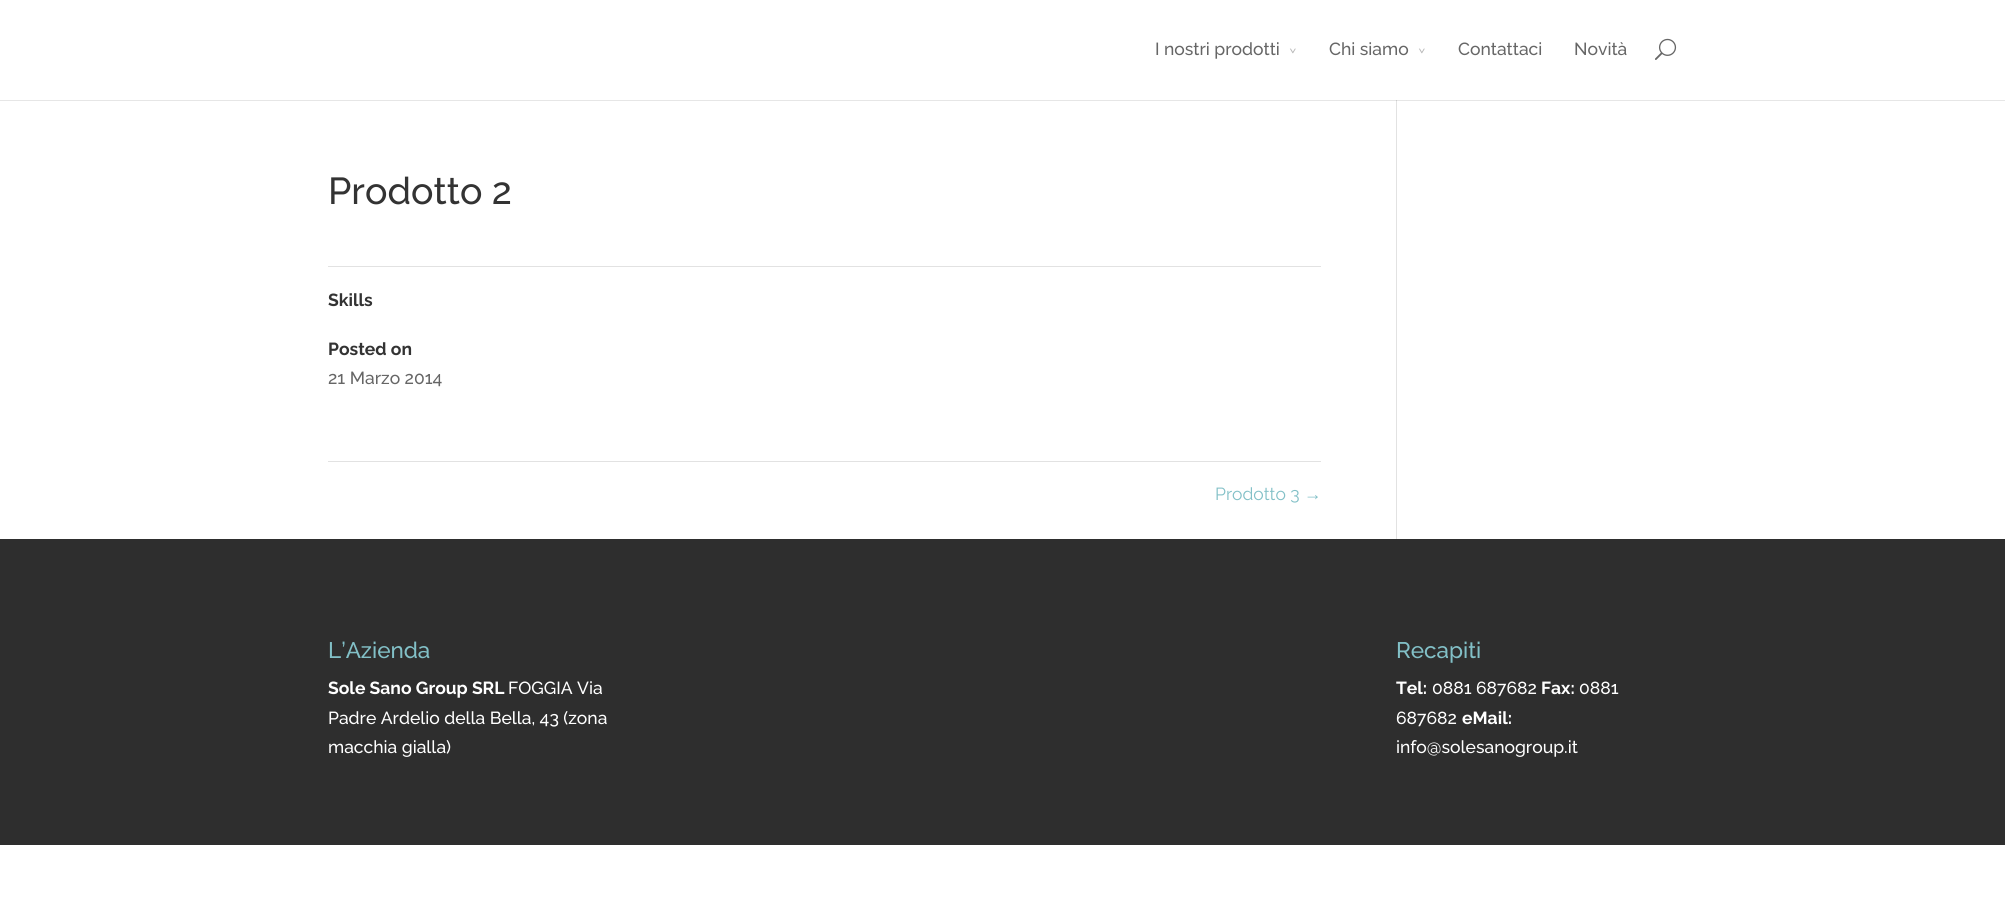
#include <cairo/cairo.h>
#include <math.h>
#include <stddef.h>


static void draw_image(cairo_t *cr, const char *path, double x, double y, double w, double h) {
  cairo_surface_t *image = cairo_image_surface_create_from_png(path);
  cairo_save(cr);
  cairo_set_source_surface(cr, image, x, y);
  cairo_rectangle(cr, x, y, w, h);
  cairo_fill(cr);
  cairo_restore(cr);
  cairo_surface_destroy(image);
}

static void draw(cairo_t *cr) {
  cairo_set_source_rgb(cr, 1, 1, 1);
  cairo_paint(cr);
  cairo_set_source_rgb(cr, 230 / 255.0, 230 / 255.0, 230 / 255.0);
  cairo_rectangle(cr, 0, 100, 2005, 1);
  cairo_fill(cr);
  draw_image(cr, "images/1.png", 1655, 38, 22, 22);
  cairo_set_source_rgb(cr, 226 / 255.0, 226 / 255.0, 226 / 255.0);
  cairo_rectangle(cr, 328, 266, 993, 1);
  cairo_fill(cr);
  cairo_rectangle(cr, 328, 461, 993, 1);
  cairo_fill(cr);
  cairo_rectangle(cr, 1396, 100, 1, 439);
  cairo_fill(cr);
  cairo_set_source_rgb(cr, 203 / 255.0, 203 / 255.0, 203 / 255.0);
  cairo_rectangle(cr, 1396, 100, 1, 1);
  cairo_fill(cr);
  cairo_set_source_rgb(cr, 46 / 255.0, 46 / 255.0, 46 / 255.0);
  cairo_rectangle(cr, 0, 539, 2005, 306);
  cairo_fill(cr);
  cairo_select_font_face(cr, "Raleway Medium", CAIRO_FONT_SLANT_NORMAL, CAIRO_FONT_WEIGHT_NORMAL);
  cairo_set_font_size(cr, 17.5);
  cairo_set_source_rgb(cr, 102 / 255.0, 102 / 255.0, 102 / 255.0);
  cairo_move_to(cr, 1155, 55);
  cairo_show_text(cr, "I nostri prodotti");
  cairo_set_font_size(cr, 11);
  cairo_set_source_rgb(cr, 183 / 255.0, 183 / 255.0, 183 / 255.0);
  cairo_save(cr);
  cairo_translate(cr, 1290, 48);
  cairo_rotate(cr, 90 * M_PI / 180);
  cairo_move_to(cr, 0, 0);
  cairo_show_text(cr, ">");
  cairo_restore(cr);
  cairo_set_font_size(cr, 17.5);
  cairo_set_source_rgb(cr, 102 / 255.0, 102 / 255.0, 102 / 255.0);
  cairo_move_to(cr, 1329, 55);
  cairo_show_text(cr, "Chi siamo");
  cairo_set_font_size(cr, 11);
  cairo_set_source_rgb(cr, 183 / 255.0, 183 / 255.0, 183 / 255.0);
  cairo_save(cr);
  cairo_translate(cr, 1419, 48);
  cairo_rotate(cr, 90 * M_PI / 180);
  cairo_move_to(cr, 0, 0);
  cairo_show_text(cr, ">");
  cairo_restore(cr);
  cairo_set_font_size(cr, 17.5);
  cairo_set_source_rgb(cr, 102 / 255.0, 102 / 255.0, 102 / 255.0);
  cairo_move_to(cr, 1458, 55);
  cairo_show_text(cr, "Contattaci");
  cairo_move_to(cr, 1574, 55);
  cairo_show_text(cr, "Novità");
  cairo_set_font_size(cr, 37.5);
  cairo_set_source_rgb(cr, 51 / 255.0, 51 / 255.0, 51 / 255.0);
  cairo_move_to(cr, 328, 204);
  cairo_show_text(cr, "Prodotto 2");
  cairo_select_font_face(cr, "Raleway", CAIRO_FONT_SLANT_NORMAL, CAIRO_FONT_WEIGHT_BOLD);
  cairo_set_font_size(cr, 17.5);
  cairo_move_to(cr, 328, 306);
  cairo_show_text(cr, "Skills");
  cairo_move_to(cr, 328, 355);
  cairo_show_text(cr, "Posted on");
  cairo_select_font_face(cr, "Raleway Medium", CAIRO_FONT_SLANT_NORMAL, CAIRO_FONT_WEIGHT_NORMAL);
  cairo_set_source_rgb(cr, 102 / 255.0, 102 / 255.0, 102 / 255.0);
  cairo_move_to(cr, 328, 384);
  cairo_show_text(cr, "21 Marzo 2014");
  cairo_select_font_face(cr, "Raleway", CAIRO_FONT_SLANT_NORMAL, CAIRO_FONT_WEIGHT_NORMAL);
  cairo_set_source_rgb(cr, 130 / 255.0, 192 / 255.0, 199 / 255.0);
  cairo_move_to(cr, 1215, 500);
  cairo_show_text(cr, "Prodotto 3");
  cairo_select_font_face(cr, "Liberation Sans", CAIRO_FONT_SLANT_NORMAL, CAIRO_FONT_WEIGHT_NORMAL);
  cairo_move_to(cr, 1304, 500);
  cairo_show_text(cr, "→");
  cairo_select_font_face(cr, "Raleway Medium", CAIRO_FONT_SLANT_NORMAL, CAIRO_FONT_WEIGHT_NORMAL);
  cairo_set_font_size(cr, 22.5);
  cairo_move_to(cr, 328, 658);
  cairo_show_text(cr, "L’Azienda");
  cairo_select_font_face(cr, "Raleway", CAIRO_FONT_SLANT_NORMAL, CAIRO_FONT_WEIGHT_BOLD);
  cairo_set_font_size(cr, 17.5);
  cairo_set_source_rgb(cr, 1, 1, 1);
  cairo_move_to(cr, 328, 694);
  cairo_show_text(cr, "Sole Sano Group SRL");
  cairo_select_font_face(cr, "Raleway Medium", CAIRO_FONT_SLANT_NORMAL, CAIRO_FONT_WEIGHT_NORMAL);
  cairo_move_to(cr, 508, 694);
  cairo_show_text(cr, "FOGGIA Via");
  cairo_move_to(cr, 328, 724);
  cairo_show_text(cr, "Padre Ardelio della Bella, 43 (zona");
  cairo_move_to(cr, 328, 753);
  cairo_show_text(cr, "macchia gialla)");
  cairo_set_font_size(cr, 22.5);
  cairo_set_source_rgb(cr, 130 / 255.0, 192 / 255.0, 199 / 255.0);
  cairo_move_to(cr, 1396, 658);
  cairo_show_text(cr, "Recapiti");
  cairo_select_font_face(cr, "Raleway", CAIRO_FONT_SLANT_NORMAL, CAIRO_FONT_WEIGHT_BOLD);
  cairo_set_font_size(cr, 17.5);
  cairo_set_source_rgb(cr, 1, 1, 1);
  cairo_move_to(cr, 1396, 694);
  cairo_show_text(cr, "Tel:");
  cairo_select_font_face(cr, "Raleway Medium", CAIRO_FONT_SLANT_NORMAL, CAIRO_FONT_WEIGHT_NORMAL);
  cairo_move_to(cr, 1432, 694);
  cairo_show_text(cr, "0881 687682");
  cairo_select_font_face(cr, "Raleway", CAIRO_FONT_SLANT_NORMAL, CAIRO_FONT_WEIGHT_BOLD);
  cairo_move_to(cr, 1541, 694);
  cairo_show_text(cr, "Fax:");
  cairo_select_font_face(cr, "Raleway Medium", CAIRO_FONT_SLANT_NORMAL, CAIRO_FONT_WEIGHT_NORMAL);
  cairo_move_to(cr, 1579, 694);
  cairo_show_text(cr, "0881");
  cairo_move_to(cr, 1396, 724);
  cairo_show_text(cr, "687682");
  cairo_select_font_face(cr, "Raleway", CAIRO_FONT_SLANT_NORMAL, CAIRO_FONT_WEIGHT_BOLD);
  cairo_move_to(cr, 1462, 724);
  cairo_show_text(cr, "eMail:");
  cairo_select_font_face(cr, "Raleway Medium", CAIRO_FONT_SLANT_NORMAL, CAIRO_FONT_WEIGHT_NORMAL);
  cairo_move_to(cr, 1396, 753);
  cairo_show_text(cr, "info@solesanogroup.it");
}

int main(void) {
  cairo_surface_t *surface = cairo_image_surface_create(CAIRO_FORMAT_RGB24, 2005, 906);
  cairo_t *cr = cairo_create(surface);
  cairo_font_options_t *options = cairo_font_options_create();
  cairo_font_options_set_hint_metrics(options, CAIRO_HINT_METRICS_OFF);
  cairo_font_options_set_hint_style(options, CAIRO_HINT_STYLE_NONE);
  cairo_set_font_options(cr, options);
  cairo_set_miter_limit(cr, 4);
  draw(cr);
  cairo_surface_write_to_png(surface, "out.png");
  cairo_font_options_destroy(options);
  cairo_destroy(cr);
  cairo_surface_destroy(surface);
  return 0;
}
